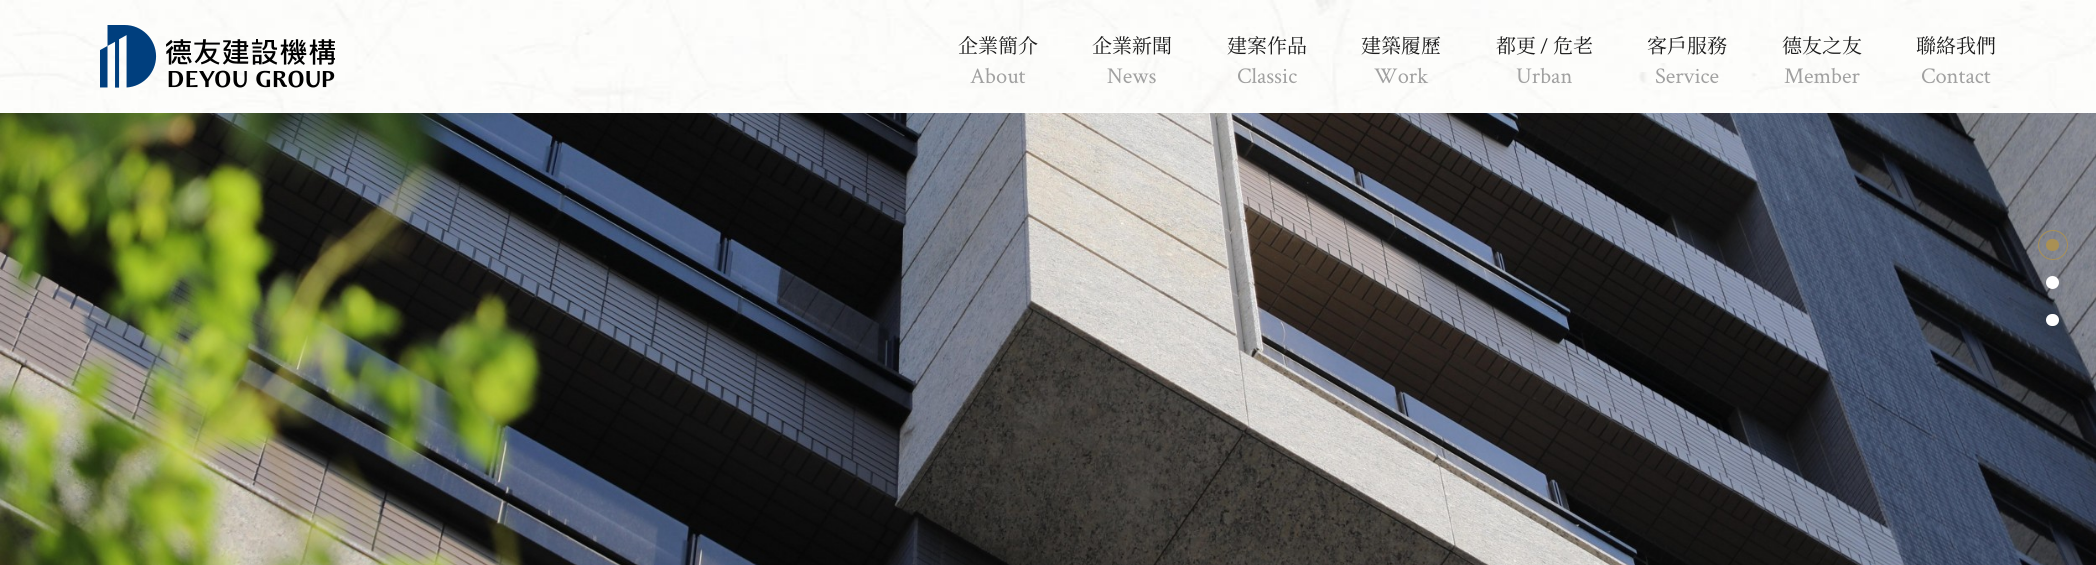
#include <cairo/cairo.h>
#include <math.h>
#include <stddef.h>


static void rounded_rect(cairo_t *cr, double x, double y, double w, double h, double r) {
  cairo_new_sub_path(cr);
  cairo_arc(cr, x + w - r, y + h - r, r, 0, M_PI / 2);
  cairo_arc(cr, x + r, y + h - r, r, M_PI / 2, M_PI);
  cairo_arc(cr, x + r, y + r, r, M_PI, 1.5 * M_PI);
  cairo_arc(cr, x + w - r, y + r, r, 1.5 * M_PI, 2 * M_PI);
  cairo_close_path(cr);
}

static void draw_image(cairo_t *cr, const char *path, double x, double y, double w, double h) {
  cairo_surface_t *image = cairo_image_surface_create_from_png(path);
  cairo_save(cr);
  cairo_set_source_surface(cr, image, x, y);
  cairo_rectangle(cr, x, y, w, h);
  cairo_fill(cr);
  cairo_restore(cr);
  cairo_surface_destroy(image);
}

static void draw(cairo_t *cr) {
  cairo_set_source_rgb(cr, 1, 1, 1);
  cairo_paint(cr);
  draw_image(cr, "images/1.png", 0, 0, 2096, 113);
  draw_image(cr, "images/2.png", 100, 25, 235, 63);
  draw_image(cr, "images/3.png", 0, 113, 2096, 452);
  cairo_set_source_rgb(cr, 169 / 255.0, 144 / 255.0, 84 / 255.0);
  rounded_rect(cr, 2046, 239, 13, 12, 6);
  cairo_fill(cr);
  cairo_arc(cr, 2053, 245, 14.5, 0, 2 * M_PI);
  cairo_set_line_width(cr, 1);
  cairo_stroke(cr);
  cairo_set_source_rgb(cr, 1, 1, 1);
  cairo_arc(cr, 2052.5, 282.5, 6.5, 0, 2 * M_PI);
  cairo_fill(cr);
  rounded_rect(cr, 2046, 314, 13, 12, 6);
  cairo_fill(cr);
  cairo_select_font_face(cr, "Noto Serif TC ExtraLight", CAIRO_FONT_SLANT_NORMAL, CAIRO_FONT_WEIGHT_NORMAL);
  cairo_set_font_size(cr, 20);
  cairo_set_source_rgb(cr, 27 / 255.0, 27 / 255.0, 27 / 255.0);
  cairo_move_to(cr, 958, 53);
  cairo_show_text(cr, "企業簡介");
  cairo_select_font_face(cr, "Crimson Text", CAIRO_FONT_SLANT_NORMAL, CAIRO_FONT_WEIGHT_NORMAL);
  cairo_set_font_size(cr, 22.5);
  cairo_set_source_rgb(cr, 160 / 255.0, 160 / 255.0, 160 / 255.0);
  cairo_move_to(cr, 970, 83);
  cairo_show_text(cr, "About");
  cairo_select_font_face(cr, "Noto Serif TC ExtraLight", CAIRO_FONT_SLANT_NORMAL, CAIRO_FONT_WEIGHT_NORMAL);
  cairo_set_font_size(cr, 20);
  cairo_set_source_rgb(cr, 27 / 255.0, 27 / 255.0, 27 / 255.0);
  cairo_move_to(cr, 1092, 53);
  cairo_show_text(cr, "企業新聞");
  cairo_select_font_face(cr, "Crimson Text", CAIRO_FONT_SLANT_NORMAL, CAIRO_FONT_WEIGHT_NORMAL);
  cairo_set_font_size(cr, 22.5);
  cairo_set_source_rgb(cr, 160 / 255.0, 160 / 255.0, 160 / 255.0);
  cairo_move_to(cr, 1107, 83);
  cairo_show_text(cr, "News");
  cairo_select_font_face(cr, "Noto Serif TC ExtraLight", CAIRO_FONT_SLANT_NORMAL, CAIRO_FONT_WEIGHT_NORMAL);
  cairo_set_font_size(cr, 20);
  cairo_set_source_rgb(cr, 27 / 255.0, 27 / 255.0, 27 / 255.0);
  cairo_move_to(cr, 1227, 53);
  cairo_show_text(cr, "建案作品");
  cairo_select_font_face(cr, "Crimson Text", CAIRO_FONT_SLANT_NORMAL, CAIRO_FONT_WEIGHT_NORMAL);
  cairo_set_font_size(cr, 22.5);
  cairo_set_source_rgb(cr, 160 / 255.0, 160 / 255.0, 160 / 255.0);
  cairo_move_to(cr, 1237, 83);
  cairo_show_text(cr, "Classic");
  cairo_select_font_face(cr, "Noto Serif TC ExtraLight", CAIRO_FONT_SLANT_NORMAL, CAIRO_FONT_WEIGHT_NORMAL);
  cairo_set_font_size(cr, 20);
  cairo_set_source_rgb(cr, 27 / 255.0, 27 / 255.0, 27 / 255.0);
  cairo_move_to(cr, 1361, 53);
  cairo_show_text(cr, "建築履歷");
  cairo_select_font_face(cr, "Crimson Text", CAIRO_FONT_SLANT_NORMAL, CAIRO_FONT_WEIGHT_NORMAL);
  cairo_set_font_size(cr, 22.5);
  cairo_set_source_rgb(cr, 160 / 255.0, 160 / 255.0, 160 / 255.0);
  cairo_move_to(cr, 1374, 83);
  cairo_show_text(cr, "Work");
  cairo_select_font_face(cr, "Noto Serif TC ExtraLight", CAIRO_FONT_SLANT_NORMAL, CAIRO_FONT_WEIGHT_NORMAL);
  cairo_set_font_size(cr, 20);
  cairo_set_source_rgb(cr, 27 / 255.0, 27 / 255.0, 27 / 255.0);
  cairo_move_to(cr, 1496, 53);
  cairo_show_text(cr, "都更");
  cairo_select_font_face(cr, "Crimson Text", CAIRO_FONT_SLANT_NORMAL, CAIRO_FONT_WEIGHT_NORMAL);
  cairo_move_to(cr, 1540, 53);
  cairo_show_text(cr, "/");
  cairo_select_font_face(cr, "Noto Serif TC ExtraLight", CAIRO_FONT_SLANT_NORMAL, CAIRO_FONT_WEIGHT_NORMAL);
  cairo_move_to(cr, 1553, 53);
  cairo_show_text(cr, "危老");
  cairo_select_font_face(cr, "Crimson Text", CAIRO_FONT_SLANT_NORMAL, CAIRO_FONT_WEIGHT_NORMAL);
  cairo_set_font_size(cr, 22.5);
  cairo_set_source_rgb(cr, 160 / 255.0, 160 / 255.0, 160 / 255.0);
  cairo_move_to(cr, 1516, 83);
  cairo_show_text(cr, "Urban");
  cairo_select_font_face(cr, "Noto Serif TC ExtraLight", CAIRO_FONT_SLANT_NORMAL, CAIRO_FONT_WEIGHT_NORMAL);
  cairo_set_font_size(cr, 20);
  cairo_set_source_rgb(cr, 27 / 255.0, 27 / 255.0, 27 / 255.0);
  cairo_move_to(cr, 1647, 53);
  cairo_show_text(cr, "客戶服務");
  cairo_select_font_face(cr, "Crimson Text", CAIRO_FONT_SLANT_NORMAL, CAIRO_FONT_WEIGHT_NORMAL);
  cairo_set_font_size(cr, 22.5);
  cairo_set_source_rgb(cr, 160 / 255.0, 160 / 255.0, 160 / 255.0);
  cairo_move_to(cr, 1655, 83);
  cairo_show_text(cr, "Service");
  cairo_select_font_face(cr, "Noto Serif TC ExtraLight", CAIRO_FONT_SLANT_NORMAL, CAIRO_FONT_WEIGHT_NORMAL);
  cairo_set_font_size(cr, 20);
  cairo_set_source_rgb(cr, 27 / 255.0, 27 / 255.0, 27 / 255.0);
  cairo_move_to(cr, 1782, 53);
  cairo_show_text(cr, "德友之友");
  cairo_select_font_face(cr, "Crimson Text", CAIRO_FONT_SLANT_NORMAL, CAIRO_FONT_WEIGHT_NORMAL);
  cairo_set_font_size(cr, 22.5);
  cairo_set_source_rgb(cr, 160 / 255.0, 160 / 255.0, 160 / 255.0);
  cairo_move_to(cr, 1784, 83);
  cairo_show_text(cr, "Member");
  cairo_select_font_face(cr, "Noto Serif TC ExtraLight", CAIRO_FONT_SLANT_NORMAL, CAIRO_FONT_WEIGHT_NORMAL);
  cairo_set_font_size(cr, 20);
  cairo_set_source_rgb(cr, 27 / 255.0, 27 / 255.0, 27 / 255.0);
  cairo_move_to(cr, 1916, 53);
  cairo_show_text(cr, "聯絡我們");
  cairo_select_font_face(cr, "Crimson Text", CAIRO_FONT_SLANT_NORMAL, CAIRO_FONT_WEIGHT_NORMAL);
  cairo_set_font_size(cr, 22.5);
  cairo_set_source_rgb(cr, 160 / 255.0, 160 / 255.0, 160 / 255.0);
  cairo_move_to(cr, 1921, 83);
  cairo_show_text(cr, "Contact");
}

int main(void) {
  cairo_surface_t *surface = cairo_image_surface_create(CAIRO_FORMAT_RGB24, 2096, 565);
  cairo_t *cr = cairo_create(surface);
  cairo_font_options_t *options = cairo_font_options_create();
  cairo_font_options_set_hint_metrics(options, CAIRO_HINT_METRICS_OFF);
  cairo_font_options_set_hint_style(options, CAIRO_HINT_STYLE_NONE);
  cairo_set_font_options(cr, options);
  cairo_set_miter_limit(cr, 4);
  draw(cr);
  cairo_surface_write_to_png(surface, "out.png");
  cairo_font_options_destroy(options);
  cairo_destroy(cr);
  cairo_surface_destroy(surface);
  return 0;
}
